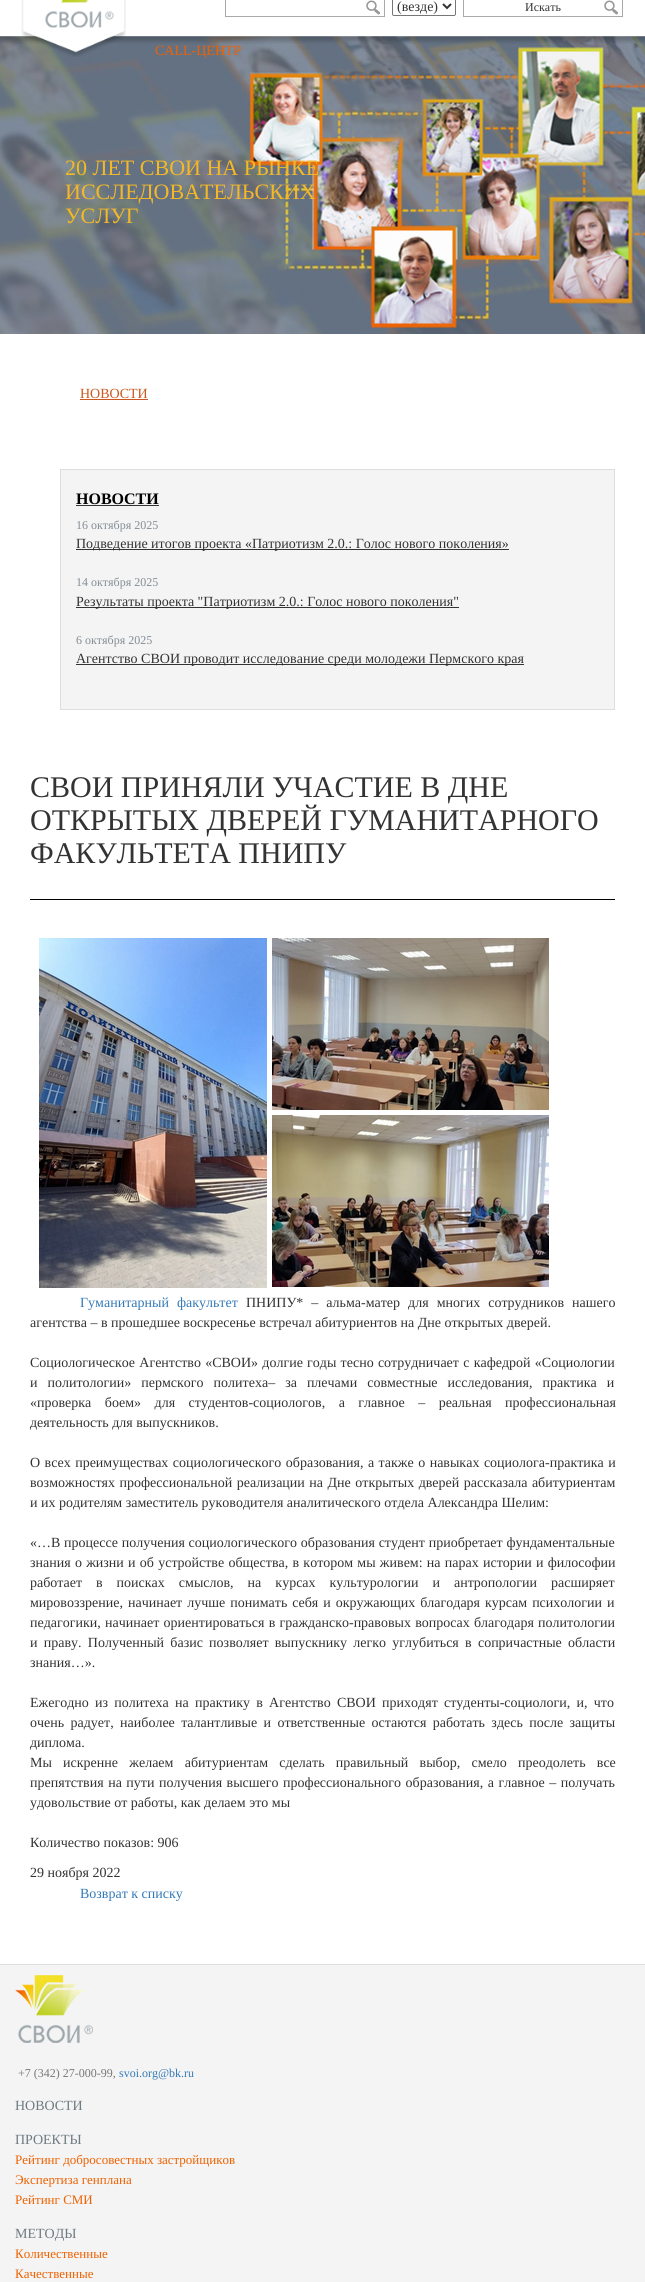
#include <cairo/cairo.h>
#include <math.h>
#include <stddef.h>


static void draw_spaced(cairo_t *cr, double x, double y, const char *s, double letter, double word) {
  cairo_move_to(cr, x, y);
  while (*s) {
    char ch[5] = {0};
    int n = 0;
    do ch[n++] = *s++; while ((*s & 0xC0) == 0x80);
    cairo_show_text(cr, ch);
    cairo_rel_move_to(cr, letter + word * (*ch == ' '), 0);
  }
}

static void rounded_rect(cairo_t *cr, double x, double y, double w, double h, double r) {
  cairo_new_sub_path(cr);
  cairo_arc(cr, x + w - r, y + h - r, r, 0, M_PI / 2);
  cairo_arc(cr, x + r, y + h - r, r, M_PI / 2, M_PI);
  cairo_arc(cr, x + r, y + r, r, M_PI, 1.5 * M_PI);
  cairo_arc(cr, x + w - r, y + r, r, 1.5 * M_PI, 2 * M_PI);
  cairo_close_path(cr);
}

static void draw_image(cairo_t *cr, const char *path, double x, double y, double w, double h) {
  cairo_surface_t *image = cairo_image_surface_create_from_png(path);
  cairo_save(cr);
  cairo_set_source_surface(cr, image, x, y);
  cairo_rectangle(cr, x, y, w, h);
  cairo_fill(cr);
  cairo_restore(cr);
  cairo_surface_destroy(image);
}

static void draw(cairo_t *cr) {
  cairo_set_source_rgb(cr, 1, 1, 1);
  cairo_paint(cr);
  draw_image(cr, "images/4.png", 0, 36, 645, 298);
  draw_image(cr, "images/3.png", 0, 36, 645, 8);
  draw_image(cr, "images/1.png", 21, 0, 105, 57);
  draw_image(cr, "images/2.png", 366, 0, 14, 15);
  cairo_rectangle(cr, 225.5, -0.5, 159, 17);
  cairo_set_source_rgb(cr, 169 / 255.0, 169 / 255.0, 169 / 255.0);
  cairo_set_line_width(cr, 1);
  cairo_stroke(cr);
  rounded_rect(cr, 392.5, -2.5, 63, 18, 1.5);
  cairo_set_source_rgb(cr, 118 / 255.0, 118 / 255.0, 118 / 255.0);
  cairo_stroke(cr);
  cairo_new_path(cr);
  cairo_move_to(cr, 443, 4);
  cairo_line_to(cr, 447, 8);
  cairo_line_to(cr, 451, 4);
  cairo_set_source_rgb(cr, 51 / 255.0, 51 / 255.0, 51 / 255.0);
  cairo_set_line_width(cr, 2);
  cairo_stroke(cr);
  draw_image(cr, "images/2.png", 604, 0, 14, 15);
  cairo_rectangle(cr, 463.5, -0.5, 159, 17);
  cairo_set_source_rgb(cr, 169 / 255.0, 169 / 255.0, 169 / 255.0);
  cairo_set_line_width(cr, 1);
  cairo_stroke(cr);
  cairo_set_source_rgb(cr, 201 / 255.0, 89 / 255.0, 32 / 255.0);
  cairo_rectangle(cr, 80, 399, 68, 1);
  cairo_fill(cr);
  cairo_set_source_rgb(cr, 244 / 255.0, 244 / 255.0, 244 / 255.0);
  cairo_rectangle(cr, 60.5, 469.5, 554, 240);
  cairo_fill_preserve(cr);
  cairo_set_source_rgb(cr, 222 / 255.0, 222 / 255.0, 222 / 255.0);
  cairo_stroke(cr);
  cairo_set_source_rgb(cr, 51 / 255.0, 51 / 255.0, 51 / 255.0);
  cairo_rectangle(cr, 76, 505, 83, 1);
  cairo_fill(cr);
  cairo_rectangle(cr, 76, 549, 433, 1);
  cairo_fill(cr);
  cairo_rectangle(cr, 76, 607, 383, 1);
  cairo_fill(cr);
  cairo_rectangle(cr, 76, 664, 448, 1);
  cairo_fill(cr);
  cairo_set_source_rgb(cr, 0, 0, 0);
  cairo_rectangle(cr, 30, 899, 585, 1);
  cairo_fill(cr);
  draw_image(cr, "images/5.png", 39, 938, 510, 350);
  cairo_set_source_rgb(cr, 244 / 255.0, 244 / 255.0, 244 / 255.0);
  cairo_rectangle(cr, 0, 1965, 645, 317);
  cairo_fill(cr);
  cairo_set_source_rgb(cr, 222 / 255.0, 222 / 255.0, 222 / 255.0);
  cairo_rectangle(cr, 0, 1964, 645, 1);
  cairo_fill(cr);
  draw_image(cr, "images/6.png", 15, 1975, 78, 68);
  cairo_select_font_face(cr, "Liberation Serif", CAIRO_FONT_SLANT_NORMAL, CAIRO_FONT_WEIGHT_NORMAL);
  cairo_set_font_size(cr, 14);
  cairo_set_source_rgb(cr, 51 / 255.0, 51 / 255.0, 51 / 255.0);
  cairo_move_to(cr, 397, 11);
  cairo_show_text(cr, "(везде)");
  cairo_set_font_size(cr, 12);
  cairo_move_to(cr, 525, 11);
  cairo_show_text(cr, "Искать");
  cairo_set_font_size(cr, 14);
  cairo_set_source_rgb(cr, 238 / 255.0, 97 / 255.0, 0);
  cairo_move_to(cr, 155, 55);
  cairo_show_text(cr, "CALL-ЦЕНТР");
  cairo_set_font_size(cr, 22);
  cairo_set_source_rgb(cr, 244 / 255.0, 184 / 255.0, 39 / 255.0);
  cairo_move_to(cr, 65, 175);
  cairo_show_text(cr, "20 ЛЕТ СВОИ НА РЫНКЕ");
  cairo_move_to(cr, 65, 199);
  cairo_show_text(cr, "ИССЛЕДОВАТЕЛЬСКИХ");
  cairo_move_to(cr, 65, 223);
  cairo_show_text(cr, "УСЛУГ");
  cairo_set_font_size(cr, 14);
  cairo_set_source_rgb(cr, 201 / 255.0, 89 / 255.0, 32 / 255.0);
  cairo_move_to(cr, 80, 398);
  cairo_show_text(cr, "НОВОСТИ");
  cairo_select_font_face(cr, "Liberation Serif", CAIRO_FONT_SLANT_NORMAL, CAIRO_FONT_WEIGHT_BOLD);
  cairo_set_font_size(cr, 16);
  cairo_set_source_rgb(cr, 0, 0, 0);
  cairo_move_to(cr, 76, 504);
  cairo_show_text(cr, "НОВОСТИ");
  cairo_select_font_face(cr, "Liberation Serif", CAIRO_FONT_SLANT_NORMAL, CAIRO_FONT_WEIGHT_NORMAL);
  cairo_set_font_size(cr, 12);
  cairo_set_source_rgb(cr, 132 / 255.0, 142 / 255.0, 149 / 255.0);
  cairo_move_to(cr, 76, 529);
  cairo_show_text(cr, "16 октября 2025");
  cairo_set_font_size(cr, 14);
  cairo_set_source_rgb(cr, 51 / 255.0, 51 / 255.0, 51 / 255.0);
  cairo_move_to(cr, 76, 548);
  cairo_show_text(cr, "Подведение итогов проекта «Патриотизм 2.0.: Голос нового поколения»");
  cairo_set_font_size(cr, 12);
  cairo_set_source_rgb(cr, 132 / 255.0, 142 / 255.0, 149 / 255.0);
  cairo_move_to(cr, 76, 586);
  cairo_show_text(cr, "14 октября 2025");
  cairo_set_font_size(cr, 14);
  cairo_set_source_rgb(cr, 51 / 255.0, 51 / 255.0, 51 / 255.0);
  cairo_move_to(cr, 76, 606);
  cairo_show_text(cr, "Результаты проекта \"Патриотизм 2.0.: Голос нового поколения\"");
  cairo_set_font_size(cr, 12);
  cairo_set_source_rgb(cr, 132 / 255.0, 142 / 255.0, 149 / 255.0);
  cairo_move_to(cr, 76, 644);
  cairo_show_text(cr, "6 октября 2025");
  cairo_set_font_size(cr, 14);
  cairo_set_source_rgb(cr, 51 / 255.0, 51 / 255.0, 51 / 255.0);
  cairo_move_to(cr, 76, 663);
  cairo_show_text(cr, "Агентство СВОИ проводит исследование среди молодежи Пермского края");
  cairo_set_font_size(cr, 30);
  cairo_move_to(cr, 30, 797);
  cairo_show_text(cr, "СВОИ ПРИНЯЛИ УЧАСТИЕ В ДНЕ");
  cairo_move_to(cr, 30, 830);
  cairo_show_text(cr, "ОТКРЫТЫХ ДВЕРЕЙ ГУМАНИТАРНОГО");
  cairo_move_to(cr, 30, 863);
  cairo_show_text(cr, "ФАКУЛЬТЕТА ПНИПУ");
  cairo_set_font_size(cr, 14);
  cairo_set_source_rgb(cr, 51 / 255.0, 122 / 255.0, 183 / 255.0);
  draw_spaced(cr, 80, 1307, "Гуманитарный факультет", 0, 4.5);
  cairo_set_source_rgb(cr, 51 / 255.0, 51 / 255.0, 51 / 255.0);
  draw_spaced(cr, 246, 1307, "ПНИПУ* – альма-матер для многих сотрудников нашего", 0, 4.5);
  cairo_move_to(cr, 30, 1327);
  cairo_show_text(cr, "агентства – в прошедшее воскресенье встречал абитуриентов на Дне открытых дверей.");
  draw_spaced(cr, 30, 1367, "Социологическое Агентство «СВОИ» долгие годы тесно сотрудничает с кафедрой «Социологии", 0, 0.75);
  draw_spaced(cr, 30, 1387, "и политологии» пермского политеха– за плечами совместные исследования, практика и", 0, 6.5);
  draw_spaced(cr, 30, 1407, "«проверка боем» для студентов-социологов, а главное – реальная профессиональная", 0, 10);
  cairo_move_to(cr, 30, 1427);
  cairo_show_text(cr, "деятельность для выпускников.");
  draw_spaced(cr, 30, 1467, "О всех преимуществах социологического образования, а также о навыках социолога-практика и", 0, 1);
  draw_spaced(cr, 30, 1487, "возможностях профессиональной реализации на Дне открытых дверей рассказала абитуриентам", 0, 1);
  cairo_move_to(cr, 30, 1507);
  cairo_show_text(cr, "и их родителям заместитель руководителя аналитического отдела Александра Шелим:");
  draw_spaced(cr, 30, 1547, "«…В процессе получения социологического образования студент приобретает фундаментальные", 0, 0.25);
  draw_spaced(cr, 30, 1567, "знания о жизни и об устройстве общества, в котором мы живем: на парах истории и философии", 0, 0.75);
  draw_spaced(cr, 30, 1587, "работает в поисках смыслов, на курсах культурологии и антропологии расширяет", 0, 10.5);
  draw_spaced(cr, 30, 1607, "мировоззрение, начинает лучше понимать себя и окружающих благодаря курсам психологии и", 0, 1.5);
  draw_spaced(cr, 30, 1627, "педагогики, начинает ориентироваться в гражданско-правовых вопросах благодаря политологии", 0, 0.75);
  draw_spaced(cr, 30, 1647, "и праву. Полученный базис позволяет выпускнику легко углубиться в сопричастные области", 0, 2.75);
  cairo_move_to(cr, 30, 1667);
  cairo_show_text(cr, "знания…».");
  draw_spaced(cr, 30, 1707, "Ежегодно из политеха на практику в Агентство СВОИ приходят студенты-социологи, и, что", 0, 2.75);
  draw_spaced(cr, 30, 1727, "очень радует, наиболее талантливые и ответственные остаются работать здесь после защиты", 0, 2.9);
  cairo_move_to(cr, 30, 1747);
  cairo_show_text(cr, "диплома.");
  draw_spaced(cr, 30, 1767, "Мы искренне желаем абитуриентам сделать правильный выбор, смело преодолеть все", 0, 7.75);
  draw_spaced(cr, 30, 1787, "препятствия на пути получения высшего профессионального образования, а главное – получать", 0, 1);
  cairo_move_to(cr, 30, 1807);
  cairo_show_text(cr, "удовольствие от работы, как делаем это мы");
  cairo_move_to(cr, 30, 1847);
  cairo_show_text(cr, "Количество показов: 906");
  cairo_move_to(cr, 30, 1877);
  cairo_show_text(cr, "29 ноября 2022");
  cairo_set_source_rgb(cr, 51 / 255.0, 122 / 255.0, 183 / 255.0);
  cairo_move_to(cr, 80, 1898);
  cairo_show_text(cr, "Возврат к списку");
  cairo_set_font_size(cr, 12);
  cairo_set_source_rgb(cr, 119 / 255.0, 119 / 255.0, 119 / 255.0);
  cairo_move_to(cr, 18, 2077);
  cairo_show_text(cr, "+7 (342) 27-000-99,");
  cairo_set_source_rgb(cr, 51 / 255.0, 122 / 255.0, 183 / 255.0);
  cairo_move_to(cr, 119, 2077);
  cairo_show_text(cr, "svoi.org@bk.ru");
  cairo_set_font_size(cr, 14);
  cairo_set_source_rgb(cr, 110 / 255.0, 122 / 255.0, 129 / 255.0);
  cairo_move_to(cr, 15, 2110);
  cairo_show_text(cr, "НОВОСТИ");
  cairo_move_to(cr, 15, 2144);
  cairo_show_text(cr, "ПРОЕКТЫ");
  cairo_set_font_size(cr, 13);
  cairo_set_source_rgb(cr, 238 / 255.0, 97 / 255.0, 0);
  cairo_move_to(cr, 15, 2164);
  cairo_show_text(cr, "Рейтинг добросовестных застройщиков");
  cairo_move_to(cr, 15, 2184);
  cairo_show_text(cr, "Экспертиза генплана");
  cairo_move_to(cr, 15, 2204);
  cairo_show_text(cr, "Рейтинг СМИ");
  cairo_set_font_size(cr, 14);
  cairo_set_source_rgb(cr, 110 / 255.0, 122 / 255.0, 129 / 255.0);
  cairo_move_to(cr, 15, 2238);
  cairo_show_text(cr, "МЕТОДЫ");
  cairo_set_font_size(cr, 13);
  cairo_set_source_rgb(cr, 238 / 255.0, 97 / 255.0, 0);
  cairo_move_to(cr, 15, 2258);
  cairo_show_text(cr, "Количественные");
  cairo_move_to(cr, 15, 2278);
  cairo_show_text(cr, "Качественные");
}

int main(void) {
  cairo_surface_t *surface = cairo_image_surface_create(CAIRO_FORMAT_RGB24, 645, 2282);
  cairo_t *cr = cairo_create(surface);
  cairo_font_options_t *options = cairo_font_options_create();
  cairo_font_options_set_hint_metrics(options, CAIRO_HINT_METRICS_OFF);
  cairo_font_options_set_hint_style(options, CAIRO_HINT_STYLE_NONE);
  cairo_set_font_options(cr, options);
  cairo_set_miter_limit(cr, 4);
  draw(cr);
  cairo_surface_write_to_png(surface, "out.png");
  cairo_font_options_destroy(options);
  cairo_destroy(cr);
  cairo_surface_destroy(surface);
  return 0;
}
